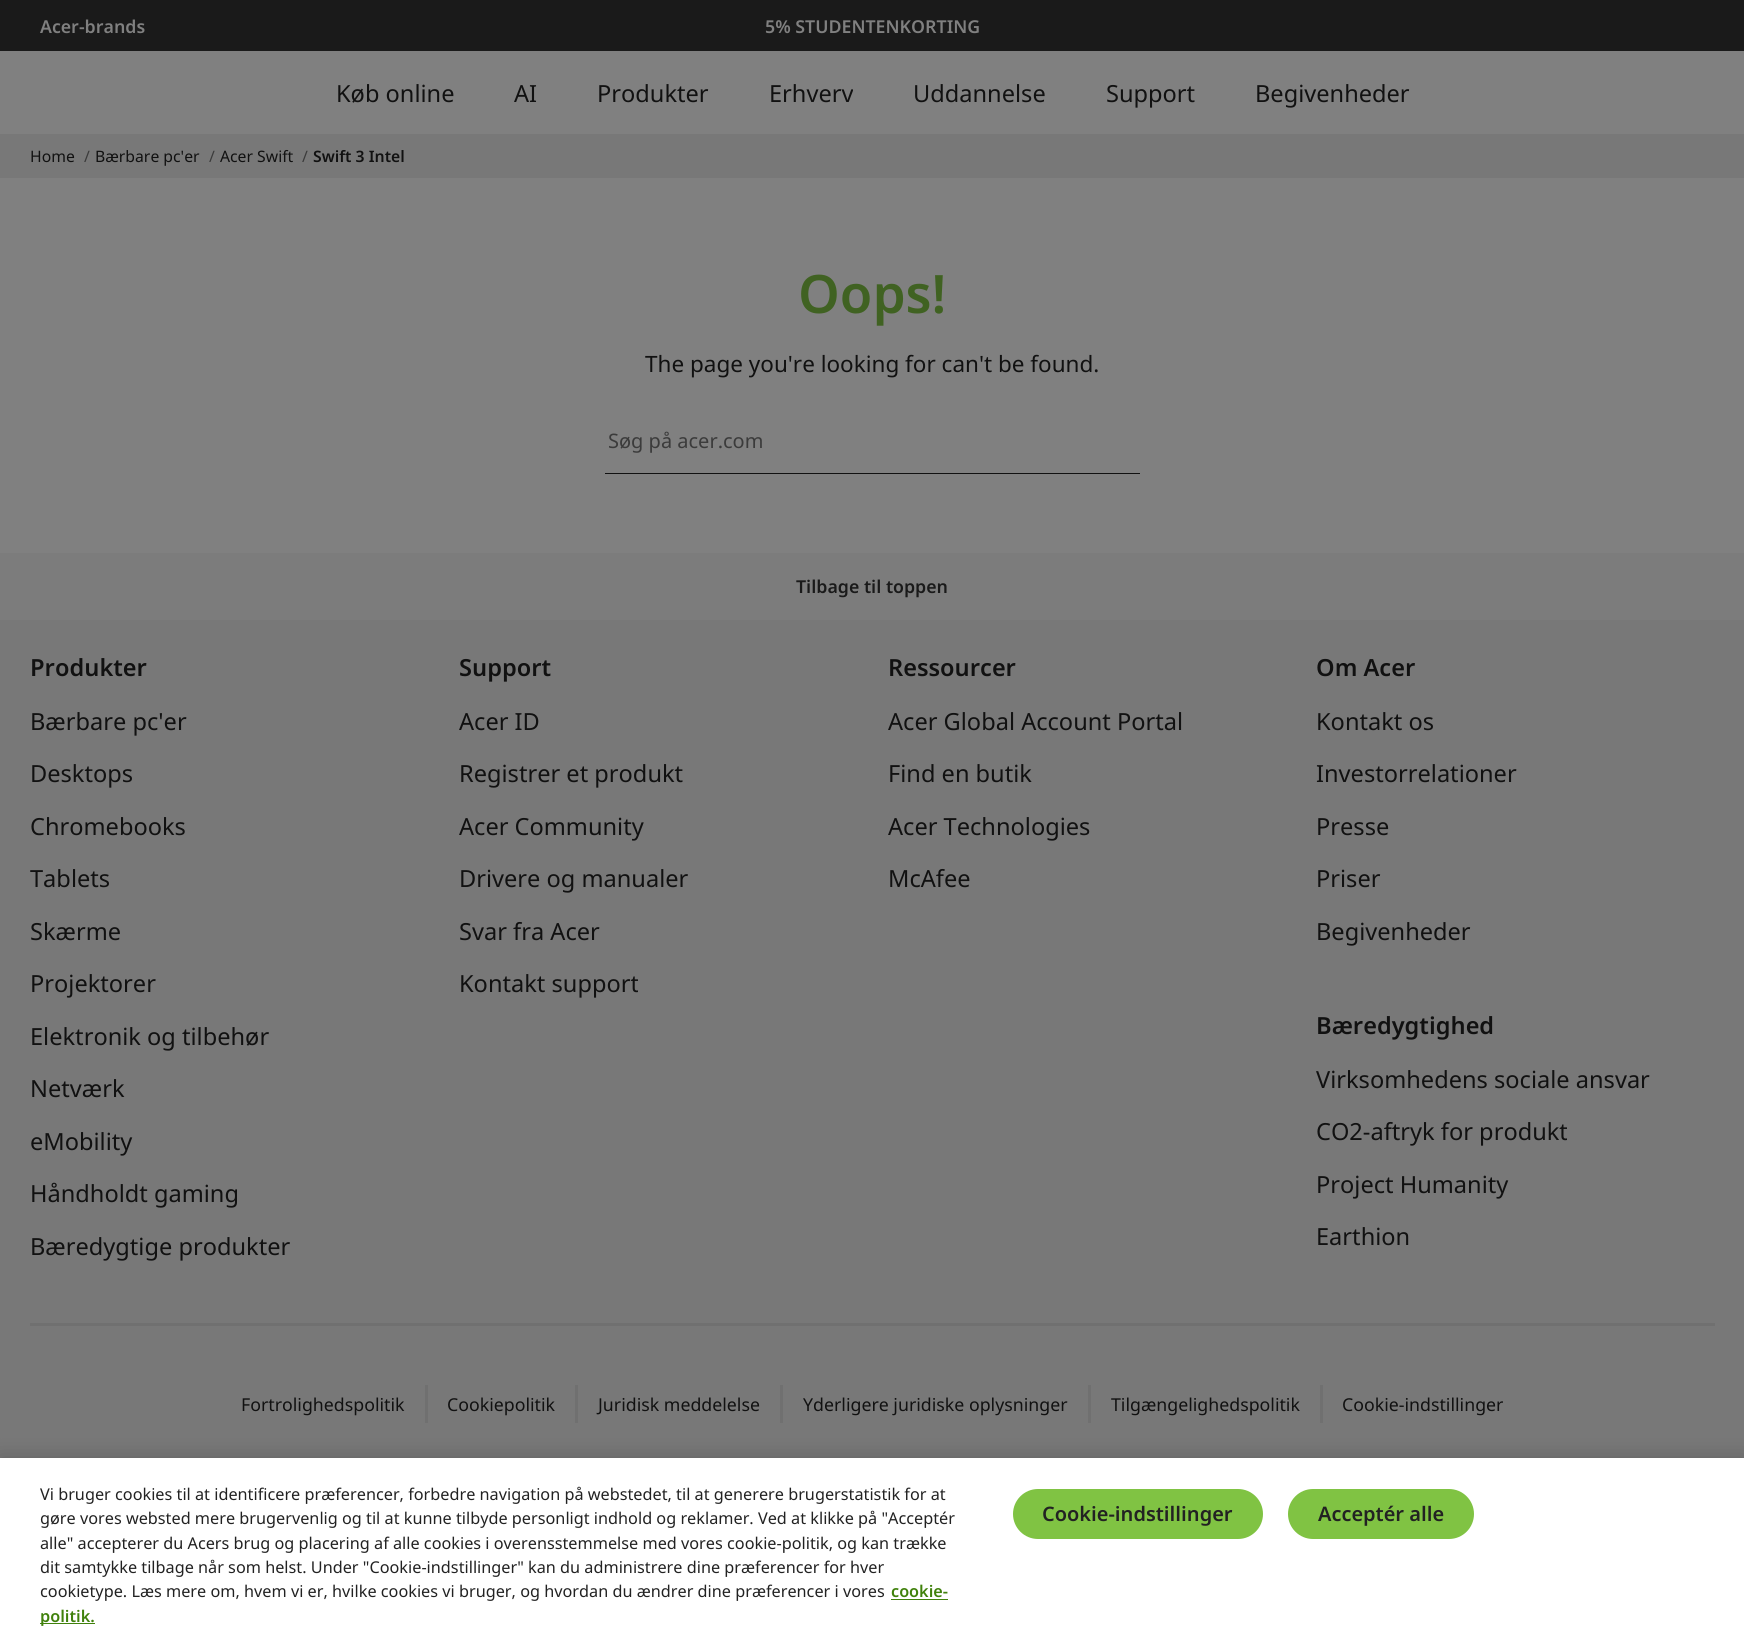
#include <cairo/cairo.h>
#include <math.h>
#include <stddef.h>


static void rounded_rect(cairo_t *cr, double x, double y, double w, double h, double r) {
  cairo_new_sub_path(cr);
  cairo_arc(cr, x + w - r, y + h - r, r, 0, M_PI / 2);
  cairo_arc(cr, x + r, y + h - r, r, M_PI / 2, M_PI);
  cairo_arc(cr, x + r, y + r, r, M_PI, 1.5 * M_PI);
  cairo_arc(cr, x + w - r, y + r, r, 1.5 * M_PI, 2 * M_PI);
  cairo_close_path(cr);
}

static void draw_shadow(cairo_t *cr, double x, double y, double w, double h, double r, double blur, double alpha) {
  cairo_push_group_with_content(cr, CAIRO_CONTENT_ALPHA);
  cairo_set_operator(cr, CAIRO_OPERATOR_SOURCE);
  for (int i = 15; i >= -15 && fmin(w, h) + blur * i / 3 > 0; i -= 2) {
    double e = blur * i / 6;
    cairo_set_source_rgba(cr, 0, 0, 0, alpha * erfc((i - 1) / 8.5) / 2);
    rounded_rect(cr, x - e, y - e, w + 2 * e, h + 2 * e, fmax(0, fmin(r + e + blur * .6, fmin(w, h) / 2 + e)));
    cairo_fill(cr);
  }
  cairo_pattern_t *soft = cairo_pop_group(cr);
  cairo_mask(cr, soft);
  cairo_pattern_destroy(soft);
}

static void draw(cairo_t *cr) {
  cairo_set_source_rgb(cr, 128 / 255.0, 128 / 255.0, 128 / 255.0);
  cairo_paint(cr);
  cairo_set_source_rgb(cr, 26 / 255.0, 26 / 255.0, 26 / 255.0);
  cairo_rectangle(cr, 0, 0, 1744, 51);
  cairo_fill(cr);
  cairo_set_source_rgb(cr, 120 / 255.0, 120 / 255.0, 120 / 255.0);
  cairo_rectangle(cr, 0, 134, 1744, 44);
  cairo_fill(cr);
  cairo_set_source_rgb(cr, 17 / 255.0, 17 / 255.0, 17 / 255.0);
  cairo_rectangle(cr, 605, 473, 535, 1);
  cairo_fill(cr);
  cairo_set_source_rgb(cr, 120 / 255.0, 120 / 255.0, 120 / 255.0);
  cairo_rectangle(cr, 0, 620, 1744, 838);
  cairo_fill(cr);
  cairo_set_source_rgb(cr, 124 / 255.0, 124 / 255.0, 124 / 255.0);
  cairo_rectangle(cr, 0, 553, 1744, 67);
  cairo_fill(cr);
  cairo_set_source_rgb(cr, 112 / 255.0, 112 / 255.0, 112 / 255.0);
  cairo_rectangle(cr, 30, 1323, 1685, 3);
  cairo_fill(cr);
  cairo_rectangle(cr, 425, 1385, 3, 38);
  cairo_fill(cr);
  cairo_rectangle(cr, 575, 1385, 3, 38);
  cairo_fill(cr);
  cairo_rectangle(cr, 780, 1385, 3, 38);
  cairo_fill(cr);
  cairo_rectangle(cr, 1088, 1385, 3, 38);
  cairo_fill(cr);
  cairo_rectangle(cr, 1320, 1385, 3, 38);
  cairo_fill(cr);
  cairo_set_source_rgb(cr, 0, 0, 0);
  draw_shadow(cr, 0, 1458, 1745, 183, 0, 11, 0.2);
  cairo_set_source_rgb(cr, 1, 1, 1);
  cairo_rectangle(cr, 0, 1458, 1744, 183);
  cairo_fill(cr);
  cairo_set_source_rgb(cr, 64 / 255.0, 129 / 255.0, 12 / 255.0);
  cairo_rectangle(cr, 891, 1599, 57, 1);
  cairo_fill(cr);
  cairo_rectangle(cr, 40, 1623, 55, 1);
  cairo_fill(cr);
  cairo_set_source_rgb(cr, 128 / 255.0, 195 / 255.0, 67 / 255.0);
  rounded_rect(cr, 1013, 1489, 250, 50, 25);
  cairo_fill(cr);
  rounded_rect(cr, 1288, 1489, 186, 50, 25);
  cairo_fill(cr);
  cairo_select_font_face(cr, "Noto Sans SemiBold", CAIRO_FONT_SLANT_NORMAL, CAIRO_FONT_WEIGHT_NORMAL);
  cairo_set_font_size(cr, 17.75);
  cairo_set_source_rgb(cr, 128 / 255.0, 128 / 255.0, 128 / 255.0);
  cairo_move_to(cr, 40, 33);
  cairo_show_text(cr, "Acer-brands");
  cairo_move_to(cr, 765, 33);
  cairo_show_text(cr, "5% STUDENTENKORTING");
  cairo_select_font_face(cr, "Noto Sans", CAIRO_FONT_SLANT_NORMAL, CAIRO_FONT_WEIGHT_NORMAL);
  cairo_set_font_size(cr, 23.6);
  cairo_set_source_rgb(cr, 17 / 255.0, 17 / 255.0, 17 / 255.0);
  cairo_move_to(cr, 336, 102);
  cairo_show_text(cr, "Køb online");
  cairo_move_to(cr, 514, 102);
  cairo_show_text(cr, "AI");
  cairo_move_to(cr, 597, 102);
  cairo_show_text(cr, "Produkter");
  cairo_move_to(cr, 769, 102);
  cairo_show_text(cr, "Erhverv");
  cairo_move_to(cr, 913, 102);
  cairo_show_text(cr, "Uddannelse");
  cairo_move_to(cr, 1106, 102);
  cairo_show_text(cr, "Support");
  cairo_move_to(cr, 1255, 102);
  cairo_show_text(cr, "Begivenheder");
  cairo_set_font_size(cr, 15.75);
  cairo_move_to(cr, 30, 162);
  cairo_show_text(cr, "Home");
  cairo_set_source_rgb(cr, 59 / 255.0, 59 / 255.0, 59 / 255.0);
  cairo_move_to(cr, 84, 162);
  cairo_show_text(cr, "/");
  cairo_set_source_rgb(cr, 17 / 255.0, 17 / 255.0, 17 / 255.0);
  cairo_move_to(cr, 95, 162);
  cairo_show_text(cr, "Bærbare pc'er");
  cairo_set_source_rgb(cr, 59 / 255.0, 59 / 255.0, 59 / 255.0);
  cairo_move_to(cr, 209, 162);
  cairo_show_text(cr, "/");
  cairo_set_source_rgb(cr, 17 / 255.0, 17 / 255.0, 17 / 255.0);
  cairo_move_to(cr, 220, 162);
  cairo_show_text(cr, "Acer Swift");
  cairo_set_source_rgb(cr, 59 / 255.0, 59 / 255.0, 59 / 255.0);
  cairo_move_to(cr, 302, 162);
  cairo_show_text(cr, "/");
  cairo_select_font_face(cr, "Noto Sans SemiBold", CAIRO_FONT_SLANT_NORMAL, CAIRO_FONT_WEIGHT_NORMAL);
  cairo_set_source_rgb(cr, 17 / 255.0, 17 / 255.0, 17 / 255.0);
  cairo_move_to(cr, 313, 162);
  cairo_show_text(cr, "Swift 3 Intel");
  cairo_set_font_size(cr, 53);
  cairo_set_source_rgb(cr, 64 / 255.0, 98 / 255.0, 34 / 255.0);
  cairo_move_to(cr, 798, 313);
  cairo_show_text(cr, "Oops!");
  cairo_select_font_face(cr, "Noto Sans", CAIRO_FONT_SLANT_NORMAL, CAIRO_FONT_WEIGHT_NORMAL);
  cairo_set_font_size(cr, 22.5);
  cairo_set_source_rgb(cr, 17 / 255.0, 17 / 255.0, 17 / 255.0);
  cairo_move_to(cr, 645, 372);
  cairo_show_text(cr, "The page you're looking for can't be found.");
  cairo_set_font_size(cr, 20);
  cairo_set_source_rgb(cr, 59 / 255.0, 59 / 255.0, 59 / 255.0);
  cairo_move_to(cr, 608, 448);
  cairo_show_text(cr, "Søg på acer.com");
  cairo_select_font_face(cr, "Noto Sans SemiBold", CAIRO_FONT_SLANT_NORMAL, CAIRO_FONT_WEIGHT_NORMAL);
  cairo_set_font_size(cr, 17.75);
  cairo_set_source_rgb(cr, 26 / 255.0, 26 / 255.0, 26 / 255.0);
  cairo_move_to(cr, 796, 593);
  cairo_show_text(cr, "Tilbage til toppen");
  cairo_set_font_size(cr, 23.6);
  cairo_set_source_rgb(cr, 17 / 255.0, 17 / 255.0, 17 / 255.0);
  cairo_move_to(cr, 30, 676);
  cairo_show_text(cr, "Produkter");
  cairo_select_font_face(cr, "Noto Sans", CAIRO_FONT_SLANT_NORMAL, CAIRO_FONT_WEIGHT_NORMAL);
  cairo_move_to(cr, 30, 730);
  cairo_show_text(cr, "Bærbare pc'er");
  cairo_move_to(cr, 30, 782);
  cairo_show_text(cr, "Desktops");
  cairo_move_to(cr, 30, 835);
  cairo_show_text(cr, "Chromebooks");
  cairo_move_to(cr, 30, 887);
  cairo_show_text(cr, "Tablets");
  cairo_move_to(cr, 30, 940);
  cairo_show_text(cr, "Skærme");
  cairo_move_to(cr, 30, 992);
  cairo_show_text(cr, "Projektorer");
  cairo_move_to(cr, 30, 1045);
  cairo_show_text(cr, "Elektronik og tilbehør");
  cairo_move_to(cr, 30, 1097);
  cairo_show_text(cr, "Netværk");
  cairo_move_to(cr, 30, 1150);
  cairo_show_text(cr, "eMobility");
  cairo_move_to(cr, 30, 1202);
  cairo_show_text(cr, "Håndholdt gaming");
  cairo_move_to(cr, 30, 1255);
  cairo_show_text(cr, "Bæredygtige produkter");
  cairo_select_font_face(cr, "Noto Sans SemiBold", CAIRO_FONT_SLANT_NORMAL, CAIRO_FONT_WEIGHT_NORMAL);
  cairo_move_to(cr, 459, 676);
  cairo_show_text(cr, "Support");
  cairo_select_font_face(cr, "Noto Sans", CAIRO_FONT_SLANT_NORMAL, CAIRO_FONT_WEIGHT_NORMAL);
  cairo_move_to(cr, 459, 730);
  cairo_show_text(cr, "Acer ID");
  cairo_move_to(cr, 459, 782);
  cairo_show_text(cr, "Registrer et produkt");
  cairo_move_to(cr, 459, 835);
  cairo_show_text(cr, "Acer Community");
  cairo_move_to(cr, 459, 887);
  cairo_show_text(cr, "Drivere og manualer");
  cairo_move_to(cr, 459, 940);
  cairo_show_text(cr, "Svar fra Acer");
  cairo_move_to(cr, 459, 992);
  cairo_show_text(cr, "Kontakt support");
  cairo_select_font_face(cr, "Noto Sans SemiBold", CAIRO_FONT_SLANT_NORMAL, CAIRO_FONT_WEIGHT_NORMAL);
  cairo_move_to(cr, 888, 676);
  cairo_show_text(cr, "Ressourcer");
  cairo_select_font_face(cr, "Noto Sans", CAIRO_FONT_SLANT_NORMAL, CAIRO_FONT_WEIGHT_NORMAL);
  cairo_move_to(cr, 888, 730);
  cairo_show_text(cr, "Acer Global Account Portal");
  cairo_move_to(cr, 888, 782);
  cairo_show_text(cr, "Find en butik");
  cairo_move_to(cr, 888, 835);
  cairo_show_text(cr, "Acer Technologies");
  cairo_move_to(cr, 888, 887);
  cairo_show_text(cr, "McAfee");
  cairo_select_font_face(cr, "Noto Sans SemiBold", CAIRO_FONT_SLANT_NORMAL, CAIRO_FONT_WEIGHT_NORMAL);
  cairo_move_to(cr, 1316, 676);
  cairo_show_text(cr, "Om Acer");
  cairo_select_font_face(cr, "Noto Sans", CAIRO_FONT_SLANT_NORMAL, CAIRO_FONT_WEIGHT_NORMAL);
  cairo_move_to(cr, 1316, 730);
  cairo_show_text(cr, "Kontakt os");
  cairo_move_to(cr, 1316, 782);
  cairo_show_text(cr, "Investorrelationer");
  cairo_move_to(cr, 1316, 835);
  cairo_show_text(cr, "Presse");
  cairo_move_to(cr, 1316, 887);
  cairo_show_text(cr, "Priser");
  cairo_move_to(cr, 1316, 940);
  cairo_show_text(cr, "Begivenheder");
  cairo_select_font_face(cr, "Noto Sans SemiBold", CAIRO_FONT_SLANT_NORMAL, CAIRO_FONT_WEIGHT_NORMAL);
  cairo_move_to(cr, 1316, 1034);
  cairo_show_text(cr, "Bæredygtighed");
  cairo_select_font_face(cr, "Noto Sans", CAIRO_FONT_SLANT_NORMAL, CAIRO_FONT_WEIGHT_NORMAL);
  cairo_move_to(cr, 1316, 1088);
  cairo_show_text(cr, "Virksomhedens sociale ansvar");
  cairo_move_to(cr, 1316, 1140);
  cairo_show_text(cr, "CO2-aftryk for produkt");
  cairo_move_to(cr, 1316, 1193);
  cairo_show_text(cr, "Project Humanity");
  cairo_move_to(cr, 1316, 1245);
  cairo_show_text(cr, "Earthion");
  cairo_set_font_size(cr, 17.75);
  cairo_move_to(cr, 241, 1411);
  cairo_show_text(cr, "Fortrolighedspolitik");
  cairo_move_to(cr, 447, 1411);
  cairo_show_text(cr, "Cookiepolitik");
  cairo_move_to(cr, 598, 1411);
  cairo_show_text(cr, "Juridisk meddelelse");
  cairo_move_to(cr, 803, 1411);
  cairo_show_text(cr, "Yderligere juridiske oplysninger");
  cairo_move_to(cr, 1111, 1411);
  cairo_show_text(cr, "Tilgængelighedspolitik");
  cairo_move_to(cr, 1342, 1411);
  cairo_show_text(cr, "Cookie-indstillinger");
  cairo_set_font_size(cr, 16.25);
  cairo_set_source_rgb(cr, 34 / 255.0, 34 / 255.0, 34 / 255.0);
  cairo_move_to(cr, 40, 1500);
  cairo_show_text(cr, "Vi bruger cookies til at identificere præferencer, forbedre navigation på webstedet, til at generere brugerstatistik for at");
  cairo_move_to(cr, 40, 1524);
  cairo_show_text(cr, "gøre vores websted mere brugervenlig og til at kunne tilbyde personligt indhold og reklamer. Ved at klikke på \"Acceptér");
  cairo_move_to(cr, 40, 1549);
  cairo_show_text(cr, "alle\" accepterer du Acers brug og placering af alle cookies i overensstemmelse med vores cookie-politik, og kan trække");
  cairo_move_to(cr, 40, 1573);
  cairo_show_text(cr, "dit samtykke tilbage når som helst. Under \"Cookie-indstillinger\" kan du administrere dine præferencer for hver");
  cairo_move_to(cr, 40, 1597);
  cairo_show_text(cr, "cookietype. Læs mere om, hvem vi er, hvilke cookies vi bruger, og hvordan du ændrer dine præferencer i vores");
  cairo_select_font_face(cr, "Noto Sans SemiBold", CAIRO_FONT_SLANT_NORMAL, CAIRO_FONT_WEIGHT_NORMAL);
  cairo_set_source_rgb(cr, 64 / 255.0, 129 / 255.0, 12 / 255.0);
  cairo_move_to(cr, 891, 1597);
  cairo_show_text(cr, "cookie-");
  cairo_move_to(cr, 40, 1622);
  cairo_show_text(cr, "politik.");
  cairo_set_font_size(cr, 20);
  cairo_set_source_rgb(cr, 34 / 255.0, 34 / 255.0, 34 / 255.0);
  cairo_move_to(cr, 1042, 1521);
  cairo_show_text(cr, "Cookie-indstillinger");
  cairo_move_to(cr, 1318, 1521);
  cairo_show_text(cr, "Acceptér alle");
}

int main(void) {
  cairo_surface_t *surface = cairo_image_surface_create(CAIRO_FORMAT_RGB24, 1744, 1641);
  cairo_t *cr = cairo_create(surface);
  cairo_font_options_t *options = cairo_font_options_create();
  cairo_font_options_set_hint_metrics(options, CAIRO_HINT_METRICS_OFF);
  cairo_font_options_set_hint_style(options, CAIRO_HINT_STYLE_NONE);
  cairo_set_font_options(cr, options);
  cairo_set_miter_limit(cr, 4);
  draw(cr);
  cairo_surface_write_to_png(surface, "out.png");
  cairo_font_options_destroy(options);
  cairo_destroy(cr);
  cairo_surface_destroy(surface);
  return 0;
}
